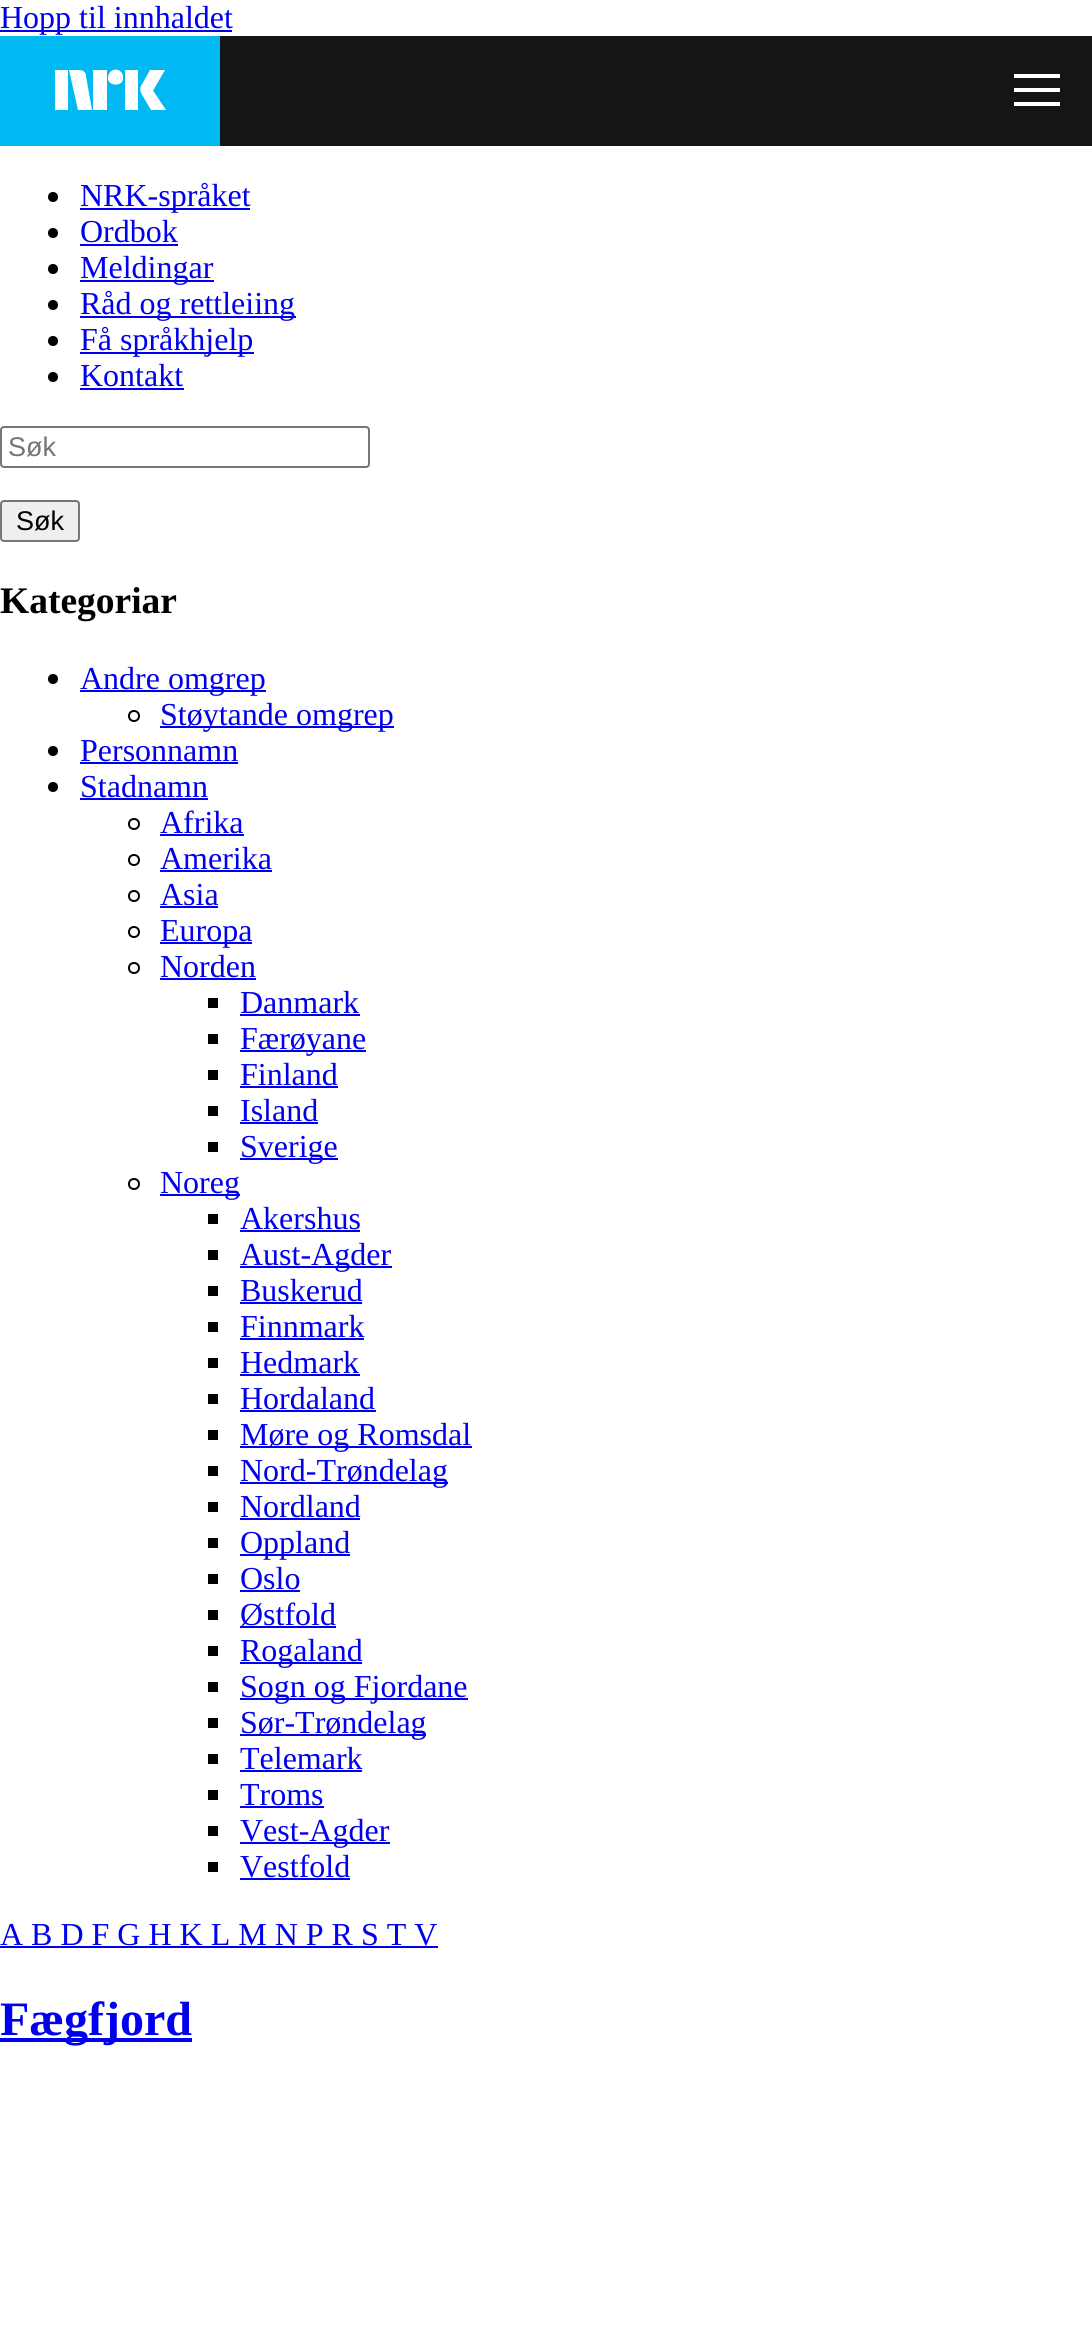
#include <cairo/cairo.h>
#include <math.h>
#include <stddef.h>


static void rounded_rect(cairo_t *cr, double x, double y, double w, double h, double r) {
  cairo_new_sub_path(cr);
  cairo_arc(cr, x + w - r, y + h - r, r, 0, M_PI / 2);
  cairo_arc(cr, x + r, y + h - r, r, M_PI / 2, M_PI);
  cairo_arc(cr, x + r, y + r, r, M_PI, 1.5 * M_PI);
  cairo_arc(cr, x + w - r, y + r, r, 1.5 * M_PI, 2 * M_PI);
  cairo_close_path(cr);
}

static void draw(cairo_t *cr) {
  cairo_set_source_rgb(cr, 1, 1, 1);
  cairo_paint(cr);
  cairo_set_source_rgb(cr, 0, 0, 238 / 255.0);
  cairo_rectangle(cr, 0, 30, 232, 2);
  cairo_fill(cr);
  cairo_set_source_rgb(cr, 20 / 255.0, 21 / 255.0, 23 / 255.0);
  cairo_rectangle(cr, 220, 36, 872, 110);
  cairo_fill(cr);
  cairo_set_source_rgb(cr, 0, 185 / 255.0, 242 / 255.0);
  cairo_rectangle(cr, 0, 36, 220, 110);
  cairo_fill(cr);
  cairo_set_source_rgb(cr, 1, 1, 1);
  cairo_new_path(cr);
  cairo_move_to(cr, 150, 70);
  cairo_line_to(cr, 165, 70);
  cairo_line_to(cr, 154, 89);
  cairo_curve_to(cr, 153, 90, 153, 91, 154, 92);
  cairo_line_to(cr, 166, 110);
  cairo_line_to(cr, 151, 110);
  cairo_line_to(cr, 141, 93);
  cairo_curve_to(cr, 140, 91, 140, 88, 141, 86);
  cairo_close_path(cr);
  cairo_move_to(cr, 69, 70);
  cairo_line_to(cr, 79, 70);
  cairo_curve_to(cr, 83, 70, 86, 72, 86, 76);
  cairo_line_to(cr, 92, 110);
  cairo_line_to(cr, 78, 110);
  cairo_close_path(cr);
  cairo_move_to(cr, 55, 70);
  cairo_line_to(cr, 68, 70);
  cairo_line_to(cr, 68, 110);
  cairo_line_to(cr, 55, 110);
  cairo_close_path(cr);
  cairo_move_to(cr, 93, 70);
  cairo_line_to(cr, 107, 70);
  cairo_line_to(cr, 107, 110);
  cairo_line_to(cr, 93, 110);
  cairo_close_path(cr);
  cairo_move_to(cr, 125, 70);
  cairo_line_to(cr, 138, 70);
  cairo_line_to(cr, 138, 110);
  cairo_line_to(cr, 125, 110);
  cairo_close_path(cr);
  cairo_move_to(cr, 123, 77);
  cairo_curve_to(cr, 123, 68, 109, 66, 108, 78);
  cairo_curve_to(cr, 107, 86, 124, 88, 123, 77);
  cairo_close_path(cr);
  cairo_fill(cr);
  cairo_new_path(cr);
  cairo_move_to(cr, 1014, 76);
  cairo_line_to(cr, 1060, 76);
  cairo_move_to(cr, 1014, 90);
  cairo_line_to(cr, 1060, 90);
  cairo_move_to(cr, 1014, 104);
  cairo_line_to(cr, 1060, 104);
  cairo_set_line_width(cr, 4);
  cairo_stroke(cr);
  cairo_set_source_rgb(cr, 0, 0, 0);
  cairo_arc(cr, 53, 197, 5, 0, 2 * M_PI);
  cairo_fill(cr);
  cairo_set_source_rgb(cr, 0, 0, 238 / 255.0);
  cairo_rectangle(cr, 80, 208, 170, 2);
  cairo_fill(cr);
  cairo_set_source_rgb(cr, 0, 0, 0);
  cairo_arc(cr, 53, 233, 5, 0, 2 * M_PI);
  cairo_fill(cr);
  cairo_set_source_rgb(cr, 0, 0, 238 / 255.0);
  cairo_rectangle(cr, 80, 244, 98, 2);
  cairo_fill(cr);
  cairo_set_source_rgb(cr, 0, 0, 0);
  cairo_arc(cr, 53, 269, 5, 0, 2 * M_PI);
  cairo_fill(cr);
  cairo_set_source_rgb(cr, 0, 0, 238 / 255.0);
  cairo_rectangle(cr, 80, 280, 134, 2);
  cairo_fill(cr);
  cairo_set_source_rgb(cr, 0, 0, 0);
  cairo_arc(cr, 53, 305, 5, 0, 2 * M_PI);
  cairo_fill(cr);
  cairo_set_source_rgb(cr, 0, 0, 238 / 255.0);
  cairo_rectangle(cr, 80, 316, 216, 2);
  cairo_fill(cr);
  cairo_set_source_rgb(cr, 0, 0, 0);
  cairo_arc(cr, 53, 341, 5, 0, 2 * M_PI);
  cairo_fill(cr);
  cairo_set_source_rgb(cr, 0, 0, 238 / 255.0);
  cairo_rectangle(cr, 80, 352, 174, 2);
  cairo_fill(cr);
  cairo_set_source_rgb(cr, 0, 0, 0);
  cairo_arc(cr, 53, 377, 5, 0, 2 * M_PI);
  cairo_fill(cr);
  cairo_set_source_rgb(cr, 0, 0, 238 / 255.0);
  cairo_rectangle(cr, 80, 388, 104, 2);
  cairo_fill(cr);
  rounded_rect(cr, 1, 427, 368, 40, 3);
  cairo_set_source_rgb(cr, 118 / 255.0, 118 / 255.0, 118 / 255.0);
  cairo_set_line_width(cr, 2);
  cairo_stroke(cr);
  cairo_set_source_rgb(cr, 239 / 255.0, 239 / 255.0, 239 / 255.0);
  rounded_rect(cr, 1, 501, 78, 40, 3);
  cairo_fill_preserve(cr);
  cairo_set_source_rgb(cr, 118 / 255.0, 118 / 255.0, 118 / 255.0);
  cairo_stroke(cr);
  cairo_set_source_rgb(cr, 0, 0, 0);
  cairo_arc(cr, 53, 679, 5, 0, 2 * M_PI);
  cairo_fill(cr);
  cairo_set_source_rgb(cr, 0, 0, 238 / 255.0);
  cairo_rectangle(cr, 80, 690, 186, 2);
  cairo_fill(cr);
  cairo_arc(cr, 134, 716, 5, 0, 2 * M_PI);
  cairo_set_source_rgb(cr, 0, 0, 0);
  cairo_stroke(cr);
  cairo_set_source_rgb(cr, 0, 0, 238 / 255.0);
  cairo_rectangle(cr, 160, 726, 234, 2);
  cairo_fill(cr);
  cairo_set_source_rgb(cr, 0, 0, 0);
  cairo_arc(cr, 53, 751, 5, 0, 2 * M_PI);
  cairo_fill(cr);
  cairo_set_source_rgb(cr, 0, 0, 238 / 255.0);
  cairo_rectangle(cr, 80, 762, 158, 2);
  cairo_fill(cr);
  cairo_set_source_rgb(cr, 0, 0, 0);
  cairo_arc(cr, 53, 787, 5, 0, 2 * M_PI);
  cairo_fill(cr);
  cairo_set_source_rgb(cr, 0, 0, 238 / 255.0);
  cairo_rectangle(cr, 80, 798, 128, 2);
  cairo_fill(cr);
  cairo_arc(cr, 134, 824, 5, 0, 2 * M_PI);
  cairo_set_source_rgb(cr, 0, 0, 0);
  cairo_stroke(cr);
  cairo_set_source_rgb(cr, 0, 0, 238 / 255.0);
  cairo_rectangle(cr, 160, 834, 84, 2);
  cairo_fill(cr);
  cairo_arc(cr, 134, 860, 5, 0, 2 * M_PI);
  cairo_set_source_rgb(cr, 0, 0, 0);
  cairo_stroke(cr);
  cairo_set_source_rgb(cr, 0, 0, 238 / 255.0);
  cairo_rectangle(cr, 160, 870, 112, 2);
  cairo_fill(cr);
  cairo_arc(cr, 134, 896, 5, 0, 2 * M_PI);
  cairo_set_source_rgb(cr, 0, 0, 0);
  cairo_stroke(cr);
  cairo_set_source_rgb(cr, 0, 0, 238 / 255.0);
  cairo_rectangle(cr, 160, 906, 58, 2);
  cairo_fill(cr);
  cairo_arc(cr, 134, 932, 5, 0, 2 * M_PI);
  cairo_set_source_rgb(cr, 0, 0, 0);
  cairo_stroke(cr);
  cairo_set_source_rgb(cr, 0, 0, 238 / 255.0);
  cairo_rectangle(cr, 160, 942, 92, 2);
  cairo_fill(cr);
  cairo_arc(cr, 134, 968, 5, 0, 2 * M_PI);
  cairo_set_source_rgb(cr, 0, 0, 0);
  cairo_stroke(cr);
  cairo_set_source_rgb(cr, 0, 0, 238 / 255.0);
  cairo_rectangle(cr, 160, 978, 96, 2);
  cairo_fill(cr);
  cairo_set_source_rgb(cr, 0, 0, 0);
  cairo_rectangle(cr, 208, 998, 10, 10);
  cairo_fill(cr);
  cairo_set_source_rgb(cr, 0, 0, 238 / 255.0);
  cairo_rectangle(cr, 240, 1014, 120, 2);
  cairo_fill(cr);
  cairo_set_source_rgb(cr, 0, 0, 0);
  cairo_rectangle(cr, 208, 1034, 10, 10);
  cairo_fill(cr);
  cairo_set_source_rgb(cr, 0, 0, 238 / 255.0);
  cairo_rectangle(cr, 240, 1050, 126, 2);
  cairo_fill(cr);
  cairo_set_source_rgb(cr, 0, 0, 0);
  cairo_rectangle(cr, 208, 1070, 10, 10);
  cairo_fill(cr);
  cairo_set_source_rgb(cr, 0, 0, 238 / 255.0);
  cairo_rectangle(cr, 240, 1086, 98, 2);
  cairo_fill(cr);
  cairo_set_source_rgb(cr, 0, 0, 0);
  cairo_rectangle(cr, 208, 1106, 10, 10);
  cairo_fill(cr);
  cairo_set_source_rgb(cr, 0, 0, 238 / 255.0);
  cairo_rectangle(cr, 240, 1122, 78, 2);
  cairo_fill(cr);
  cairo_set_source_rgb(cr, 0, 0, 0);
  cairo_rectangle(cr, 208, 1142, 10, 10);
  cairo_fill(cr);
  cairo_set_source_rgb(cr, 0, 0, 238 / 255.0);
  cairo_rectangle(cr, 240, 1158, 98, 2);
  cairo_fill(cr);
  cairo_arc(cr, 134, 1184, 5, 0, 2 * M_PI);
  cairo_set_source_rgb(cr, 0, 0, 0);
  cairo_stroke(cr);
  cairo_set_source_rgb(cr, 0, 0, 238 / 255.0);
  cairo_rectangle(cr, 160, 1194, 80, 2);
  cairo_fill(cr);
  cairo_set_source_rgb(cr, 0, 0, 0);
  cairo_rectangle(cr, 208, 1214, 10, 10);
  cairo_fill(cr);
  cairo_set_source_rgb(cr, 0, 0, 238 / 255.0);
  cairo_rectangle(cr, 240, 1230, 120, 2);
  cairo_fill(cr);
  cairo_set_source_rgb(cr, 0, 0, 0);
  cairo_rectangle(cr, 208, 1250, 10, 10);
  cairo_fill(cr);
  cairo_set_source_rgb(cr, 0, 0, 238 / 255.0);
  cairo_rectangle(cr, 240, 1266, 152, 2);
  cairo_fill(cr);
  cairo_set_source_rgb(cr, 0, 0, 0);
  cairo_rectangle(cr, 208, 1286, 10, 10);
  cairo_fill(cr);
  cairo_set_source_rgb(cr, 0, 0, 238 / 255.0);
  cairo_rectangle(cr, 240, 1302, 122, 2);
  cairo_fill(cr);
  cairo_set_source_rgb(cr, 0, 0, 0);
  cairo_rectangle(cr, 208, 1322, 10, 10);
  cairo_fill(cr);
  cairo_set_source_rgb(cr, 0, 0, 238 / 255.0);
  cairo_rectangle(cr, 240, 1338, 124, 2);
  cairo_fill(cr);
  cairo_set_source_rgb(cr, 0, 0, 0);
  cairo_rectangle(cr, 208, 1358, 10, 10);
  cairo_fill(cr);
  cairo_set_source_rgb(cr, 0, 0, 238 / 255.0);
  cairo_rectangle(cr, 240, 1374, 120, 2);
  cairo_fill(cr);
  cairo_set_source_rgb(cr, 0, 0, 0);
  cairo_rectangle(cr, 208, 1394, 10, 10);
  cairo_fill(cr);
  cairo_set_source_rgb(cr, 0, 0, 238 / 255.0);
  cairo_rectangle(cr, 240, 1410, 136, 2);
  cairo_fill(cr);
  cairo_set_source_rgb(cr, 0, 0, 0);
  cairo_rectangle(cr, 208, 1430, 10, 10);
  cairo_fill(cr);
  cairo_set_source_rgb(cr, 0, 0, 238 / 255.0);
  cairo_rectangle(cr, 240, 1446, 232, 2);
  cairo_fill(cr);
  cairo_set_source_rgb(cr, 0, 0, 0);
  cairo_rectangle(cr, 208, 1466, 10, 10);
  cairo_fill(cr);
  cairo_set_source_rgb(cr, 0, 0, 238 / 255.0);
  cairo_rectangle(cr, 240, 1482, 208, 2);
  cairo_fill(cr);
  cairo_set_source_rgb(cr, 0, 0, 0);
  cairo_rectangle(cr, 208, 1502, 10, 10);
  cairo_fill(cr);
  cairo_set_source_rgb(cr, 0, 0, 238 / 255.0);
  cairo_rectangle(cr, 240, 1518, 120, 2);
  cairo_fill(cr);
  cairo_set_source_rgb(cr, 0, 0, 0);
  cairo_rectangle(cr, 208, 1538, 10, 10);
  cairo_fill(cr);
  cairo_set_source_rgb(cr, 0, 0, 238 / 255.0);
  cairo_rectangle(cr, 240, 1554, 110, 2);
  cairo_fill(cr);
  cairo_set_source_rgb(cr, 0, 0, 0);
  cairo_rectangle(cr, 208, 1574, 10, 10);
  cairo_fill(cr);
  cairo_set_source_rgb(cr, 0, 0, 238 / 255.0);
  cairo_rectangle(cr, 240, 1590, 60, 2);
  cairo_fill(cr);
  cairo_set_source_rgb(cr, 0, 0, 0);
  cairo_rectangle(cr, 208, 1610, 10, 10);
  cairo_fill(cr);
  cairo_set_source_rgb(cr, 0, 0, 238 / 255.0);
  cairo_rectangle(cr, 240, 1626, 96, 2);
  cairo_fill(cr);
  cairo_set_source_rgb(cr, 0, 0, 0);
  cairo_rectangle(cr, 208, 1646, 10, 10);
  cairo_fill(cr);
  cairo_set_source_rgb(cr, 0, 0, 238 / 255.0);
  cairo_rectangle(cr, 240, 1662, 122, 2);
  cairo_fill(cr);
  cairo_set_source_rgb(cr, 0, 0, 0);
  cairo_rectangle(cr, 208, 1682, 10, 10);
  cairo_fill(cr);
  cairo_set_source_rgb(cr, 0, 0, 238 / 255.0);
  cairo_rectangle(cr, 240, 1698, 228, 2);
  cairo_fill(cr);
  cairo_set_source_rgb(cr, 0, 0, 0);
  cairo_rectangle(cr, 208, 1718, 10, 10);
  cairo_fill(cr);
  cairo_set_source_rgb(cr, 0, 0, 238 / 255.0);
  cairo_rectangle(cr, 240, 1734, 186, 2);
  cairo_fill(cr);
  cairo_set_source_rgb(cr, 0, 0, 0);
  cairo_rectangle(cr, 208, 1754, 10, 10);
  cairo_fill(cr);
  cairo_set_source_rgb(cr, 0, 0, 238 / 255.0);
  cairo_rectangle(cr, 240, 1770, 122, 2);
  cairo_fill(cr);
  cairo_set_source_rgb(cr, 0, 0, 0);
  cairo_rectangle(cr, 208, 1790, 10, 10);
  cairo_fill(cr);
  cairo_set_source_rgb(cr, 0, 0, 238 / 255.0);
  cairo_rectangle(cr, 240, 1806, 84, 2);
  cairo_fill(cr);
  cairo_set_source_rgb(cr, 0, 0, 0);
  cairo_rectangle(cr, 208, 1826, 10, 10);
  cairo_fill(cr);
  cairo_set_source_rgb(cr, 0, 0, 238 / 255.0);
  cairo_rectangle(cr, 240, 1842, 150, 2);
  cairo_fill(cr);
  cairo_set_source_rgb(cr, 0, 0, 0);
  cairo_rectangle(cr, 208, 1862, 10, 10);
  cairo_fill(cr);
  cairo_set_source_rgb(cr, 0, 0, 238 / 255.0);
  cairo_rectangle(cr, 240, 1878, 110, 2);
  cairo_fill(cr);
  cairo_rectangle(cr, 0, 1946, 438, 2);
  cairo_fill(cr);
  cairo_rectangle(cr, 0, 2038, 192, 4);
  cairo_fill(cr);
  cairo_select_font_face(cr, "Liberation Serif", CAIRO_FONT_SLANT_NORMAL, CAIRO_FONT_WEIGHT_NORMAL);
  cairo_set_font_size(cr, 32);
  cairo_move_to(cr, 0, 28);
  cairo_show_text(cr, "Hopp til innhaldet");
  cairo_move_to(cr, 80, 206);
  cairo_show_text(cr, "NRK-språket");
  cairo_move_to(cr, 80, 242);
  cairo_show_text(cr, "Ordbok");
  cairo_move_to(cr, 80, 278);
  cairo_show_text(cr, "Meldingar");
  cairo_move_to(cr, 80, 314);
  cairo_show_text(cr, "Råd og rettleiing");
  cairo_move_to(cr, 80, 350);
  cairo_show_text(cr, "Få språkhjelp");
  cairo_move_to(cr, 80, 386);
  cairo_show_text(cr, "Kontakt");
  cairo_select_font_face(cr, "Liberation Sans", CAIRO_FONT_SLANT_NORMAL, CAIRO_FONT_WEIGHT_NORMAL);
  cairo_set_font_size(cr, 27);
  cairo_set_source_rgb(cr, 117 / 255.0, 117 / 255.0, 117 / 255.0);
  cairo_move_to(cr, 8, 456);
  cairo_show_text(cr, "Søk");
  cairo_set_source_rgb(cr, 0, 0, 0);
  cairo_move_to(cr, 16, 530);
  cairo_show_text(cr, "Søk");
  cairo_select_font_face(cr, "Liberation Serif", CAIRO_FONT_SLANT_NORMAL, CAIRO_FONT_WEIGHT_BOLD);
  cairo_set_font_size(cr, 37.5);
  cairo_move_to(cr, 0, 613);
  cairo_show_text(cr, "Kategoriar");
  cairo_select_font_face(cr, "Liberation Serif", CAIRO_FONT_SLANT_NORMAL, CAIRO_FONT_WEIGHT_NORMAL);
  cairo_set_font_size(cr, 32);
  cairo_set_source_rgb(cr, 0, 0, 238 / 255.0);
  cairo_move_to(cr, 80, 689);
  cairo_show_text(cr, "Andre omgrep");
  cairo_move_to(cr, 160, 725);
  cairo_show_text(cr, "Støytande omgrep");
  cairo_move_to(cr, 80, 761);
  cairo_show_text(cr, "Personnamn");
  cairo_move_to(cr, 80, 797);
  cairo_show_text(cr, "Stadnamn");
  cairo_move_to(cr, 160, 833);
  cairo_show_text(cr, "Afrika");
  cairo_move_to(cr, 160, 869);
  cairo_show_text(cr, "Amerika");
  cairo_move_to(cr, 160, 905);
  cairo_show_text(cr, "Asia");
  cairo_move_to(cr, 160, 941);
  cairo_show_text(cr, "Europa");
  cairo_move_to(cr, 160, 977);
  cairo_show_text(cr, "Norden");
  cairo_move_to(cr, 240, 1013);
  cairo_show_text(cr, "Danmark");
  cairo_move_to(cr, 240, 1049);
  cairo_show_text(cr, "Færøyane");
  cairo_move_to(cr, 240, 1085);
  cairo_show_text(cr, "Finland");
  cairo_move_to(cr, 240, 1121);
  cairo_show_text(cr, "Island");
  cairo_move_to(cr, 240, 1157);
  cairo_show_text(cr, "Sverige");
  cairo_move_to(cr, 160, 1193);
  cairo_show_text(cr, "Noreg");
  cairo_move_to(cr, 240, 1229);
  cairo_show_text(cr, "Akershus");
  cairo_move_to(cr, 240, 1265);
  cairo_show_text(cr, "Aust-Agder");
  cairo_move_to(cr, 240, 1301);
  cairo_show_text(cr, "Buskerud");
  cairo_move_to(cr, 240, 1337);
  cairo_show_text(cr, "Finnmark");
  cairo_move_to(cr, 240, 1373);
  cairo_show_text(cr, "Hedmark");
  cairo_move_to(cr, 240, 1409);
  cairo_show_text(cr, "Hordaland");
  cairo_move_to(cr, 240, 1445);
  cairo_show_text(cr, "Møre og Romsdal");
  cairo_move_to(cr, 240, 1481);
  cairo_show_text(cr, "Nord-Trøndelag");
  cairo_move_to(cr, 240, 1517);
  cairo_show_text(cr, "Nordland");
  cairo_move_to(cr, 240, 1553);
  cairo_show_text(cr, "Oppland");
  cairo_move_to(cr, 240, 1589);
  cairo_show_text(cr, "Oslo");
  cairo_move_to(cr, 240, 1625);
  cairo_show_text(cr, "Østfold");
  cairo_move_to(cr, 240, 1661);
  cairo_show_text(cr, "Rogaland");
  cairo_move_to(cr, 240, 1697);
  cairo_show_text(cr, "Sogn og Fjordane");
  cairo_move_to(cr, 240, 1733);
  cairo_show_text(cr, "Sør-Trøndelag");
  cairo_move_to(cr, 240, 1769);
  cairo_show_text(cr, "Telemark");
  cairo_move_to(cr, 240, 1805);
  cairo_show_text(cr, "Troms");
  cairo_move_to(cr, 240, 1841);
  cairo_show_text(cr, "Vest-Agder");
  cairo_move_to(cr, 240, 1877);
  cairo_show_text(cr, "Vestfold");
  cairo_move_to(cr, 0, 1945);
  cairo_show_text(cr, "A B D F G H K L M N P R S T V");
  cairo_select_font_face(cr, "Liberation Serif", CAIRO_FONT_SLANT_NORMAL, CAIRO_FONT_WEIGHT_BOLD);
  cairo_set_font_size(cr, 48);
  cairo_move_to(cr, 0, 2035);
  cairo_show_text(cr, "Fægfjord");
}

int main(void) {
  cairo_surface_t *surface = cairo_image_surface_create(CAIRO_FORMAT_RGB24, 1092, 2339);
  cairo_t *cr = cairo_create(surface);
  cairo_font_options_t *options = cairo_font_options_create();
  cairo_font_options_set_hint_metrics(options, CAIRO_HINT_METRICS_OFF);
  cairo_font_options_set_hint_style(options, CAIRO_HINT_STYLE_NONE);
  cairo_set_font_options(cr, options);
  cairo_set_miter_limit(cr, 4);
  draw(cr);
  cairo_surface_write_to_png(surface, "out.png");
  cairo_font_options_destroy(options);
  cairo_destroy(cr);
  cairo_surface_destroy(surface);
  return 0;
}
